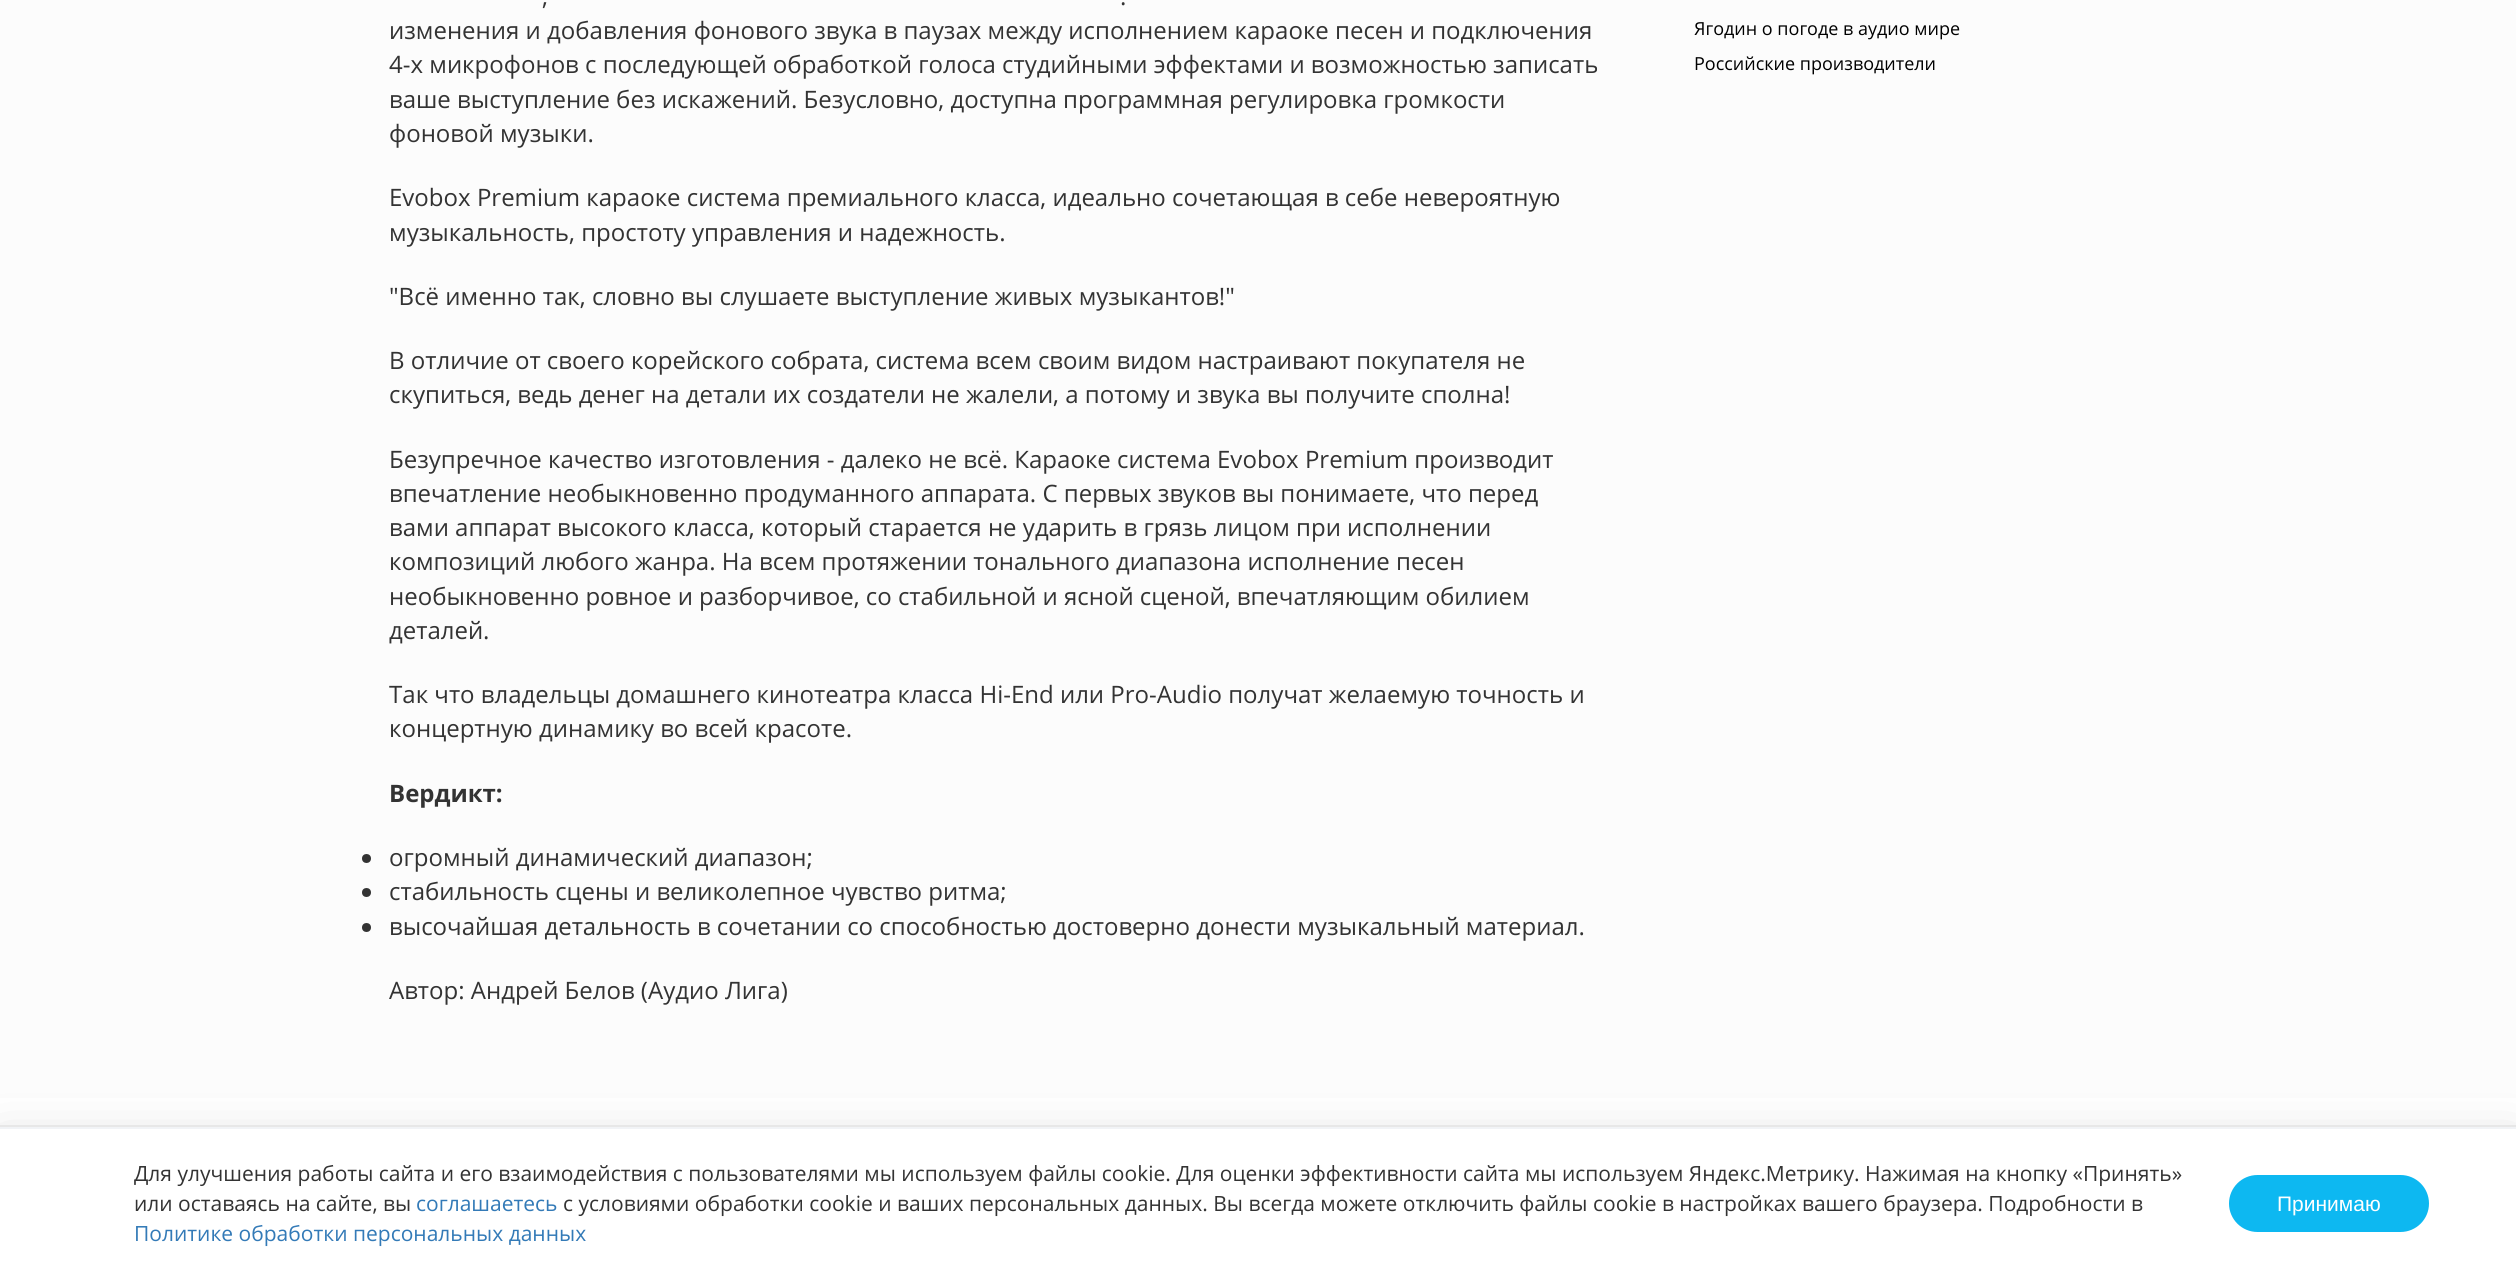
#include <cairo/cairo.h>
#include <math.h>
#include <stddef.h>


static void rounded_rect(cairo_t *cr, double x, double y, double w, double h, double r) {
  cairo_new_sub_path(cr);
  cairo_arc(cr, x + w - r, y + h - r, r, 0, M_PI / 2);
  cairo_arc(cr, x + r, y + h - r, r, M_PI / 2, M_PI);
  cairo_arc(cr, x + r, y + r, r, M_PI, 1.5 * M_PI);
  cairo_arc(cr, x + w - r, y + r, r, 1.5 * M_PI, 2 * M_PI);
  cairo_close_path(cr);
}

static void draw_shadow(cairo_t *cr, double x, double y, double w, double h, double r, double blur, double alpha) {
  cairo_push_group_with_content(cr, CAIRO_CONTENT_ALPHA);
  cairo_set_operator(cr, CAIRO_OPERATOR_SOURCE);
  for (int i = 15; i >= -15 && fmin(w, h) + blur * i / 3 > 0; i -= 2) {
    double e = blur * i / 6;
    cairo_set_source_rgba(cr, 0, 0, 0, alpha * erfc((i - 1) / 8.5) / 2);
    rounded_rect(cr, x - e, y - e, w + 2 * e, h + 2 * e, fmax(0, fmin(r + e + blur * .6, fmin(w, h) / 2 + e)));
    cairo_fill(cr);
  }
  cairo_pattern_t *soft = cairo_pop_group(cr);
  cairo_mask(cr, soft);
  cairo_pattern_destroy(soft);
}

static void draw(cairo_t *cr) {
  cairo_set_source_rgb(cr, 252 / 255.0, 252 / 255.0, 252 / 255.0);
  cairo_paint(cr);
  cairo_set_source_rgb(cr, 51 / 255.0, 51 / 255.0, 51 / 255.0);
  cairo_arc(cr, 366.5, 858.5, 4.5, 0, 2 * M_PI);
  cairo_fill(cr);
  cairo_arc(cr, 366.5, 892.5, 4.5, 0, 2 * M_PI);
  cairo_fill(cr);
  cairo_arc(cr, 366.5, 927.5, 4.5, 0, 2 * M_PI);
  cairo_fill(cr);
  cairo_set_source_rgb(cr, 1, 1, 1);
  cairo_rectangle(cr, 0, 1098, 2516, 27);
  cairo_fill(cr);
  cairo_rectangle(cr, 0, 1126, 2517, 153);
  cairo_set_source_rgb(cr, 240 / 255.0, 240 / 255.0, 240 / 255.0);
  cairo_stroke(cr);
  cairo_set_source_rgb(cr, 0, 0, 0);
  draw_shadow(cr, 0, 1142, 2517, 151, 0, 27, 0.16);
  cairo_set_source_rgb(cr, 1, 1, 1);
  cairo_rectangle(cr, 0, 1129, 2516, 149);
  cairo_fill(cr);
  cairo_set_source_rgb(cr, 241 / 255.0, 243 / 255.0, 246 / 255.0);
  cairo_rectangle(cr, 0, 1127, 2516, 2);
  cairo_fill(cr);
  cairo_set_source_rgb(cr, 13 / 255.0, 184 / 255.0, 241 / 255.0);
  rounded_rect(cr, 2230.5, 1176.5, 197, 54, 27);
  cairo_fill_preserve(cr);
  cairo_set_line_width(cr, 3);
  cairo_stroke(cr);
  cairo_select_font_face(cr, "Open Sans", CAIRO_FONT_SLANT_NORMAL, CAIRO_FONT_WEIGHT_NORMAL);
  cairo_set_font_size(cr, 24);
  cairo_set_source_rgb(cr, 51 / 255.0, 51 / 255.0, 51 / 255.0);
  cairo_move_to(cr, 542, 5);
  cairo_show_text(cr, ",");
  cairo_move_to(cr, 1120, 5);
  cairo_show_text(cr, ".");
  cairo_move_to(cr, 389, 39);
  cairo_show_text(cr, "изменения и добавления фонового звука в паузах между исполнением караоке песен и подключения");
  cairo_move_to(cr, 389, 73);
  cairo_show_text(cr, "4-х микрофонов с последующей обработкой голоса студийными эффектами и возможностью записать");
  cairo_move_to(cr, 389, 108);
  cairo_show_text(cr, "ваше выступление без искажений. Безусловно, доступна программная регулировка громкости");
  cairo_move_to(cr, 389, 142);
  cairo_show_text(cr, "фоновой музыки.");
  cairo_move_to(cr, 389, 206);
  cairo_show_text(cr, "Evobox Premium караоке система премиального класса, идеально сочетающая в себе невероятную");
  cairo_move_to(cr, 389, 241);
  cairo_show_text(cr, "музыкальность, простоту управления и надежность.");
  cairo_move_to(cr, 389, 305);
  cairo_show_text(cr, "\"Всё именно так, словно вы слушаете выступление живых музыкантов!\"");
  cairo_move_to(cr, 389, 369);
  cairo_show_text(cr, "В отличие от своего корейского собрата, система всем своим видом настраивают покупателя не");
  cairo_move_to(cr, 389, 403);
  cairo_show_text(cr, "скупиться, ведь денег на детали их создатели не жалели, а потому и звука вы получите сполна!");
  cairo_move_to(cr, 389, 468);
  cairo_show_text(cr, "Безупречное качество изготовления - далеко не всё. Караоке система Evobox Premium производит");
  cairo_move_to(cr, 389, 502);
  cairo_show_text(cr, "впечатление необыкновенно продуманного аппарата. С первых звуков вы понимаете, что перед");
  cairo_move_to(cr, 389, 536);
  cairo_show_text(cr, "вами аппарат высокого класса, который старается не ударить в грязь лицом при исполнении");
  cairo_move_to(cr, 389, 570);
  cairo_show_text(cr, "композиций любого жанра. На всем протяжении тонального диапазона исполнение песен");
  cairo_move_to(cr, 389, 605);
  cairo_show_text(cr, "необыкновенно ровное и разборчивое, со стабильной и ясной сценой, впечатляющим обилием");
  cairo_move_to(cr, 389, 639);
  cairo_show_text(cr, "деталей.");
  cairo_move_to(cr, 389, 703);
  cairo_show_text(cr, "Так что владельцы домашнего кинотеатра класса Hi-End или Pro-Audio получат желаемую точность и");
  cairo_move_to(cr, 389, 737);
  cairo_show_text(cr, "концертную динамику во всей красоте.");
  cairo_select_font_face(cr, "Open Sans", CAIRO_FONT_SLANT_NORMAL, CAIRO_FONT_WEIGHT_BOLD);
  cairo_move_to(cr, 389, 802);
  cairo_show_text(cr, "Вердикт:");
  cairo_select_font_face(cr, "Open Sans", CAIRO_FONT_SLANT_NORMAL, CAIRO_FONT_WEIGHT_NORMAL);
  cairo_move_to(cr, 389, 866);
  cairo_show_text(cr, "огромный динамический диапазон;");
  cairo_move_to(cr, 389, 900);
  cairo_show_text(cr, "стабильность сцены и великолепное чувство ритма;");
  cairo_move_to(cr, 389, 935);
  cairo_show_text(cr, "высочайшая детальность в сочетании со способностью достоверно донести музыкальный материал.");
  cairo_move_to(cr, 389, 999);
  cairo_show_text(cr, "Автор: Андрей Белов (Аудио Лига)");
  cairo_set_font_size(cr, 18);
  cairo_set_source_rgb(cr, 0, 0, 0);
  cairo_move_to(cr, 1694, 35);
  cairo_show_text(cr, "Ягодин о погоде в аудио мире");
  cairo_move_to(cr, 1694, 70);
  cairo_show_text(cr, "Российские производители");
  cairo_set_font_size(cr, 21);
  cairo_set_source_rgb(cr, 51 / 255.0, 51 / 255.0, 51 / 255.0);
  cairo_move_to(cr, 134, 1181);
  cairo_show_text(cr, "Для улучшения работы сайта и его взаимодействия с пользователями мы используем файлы cookie. Для оценки эффективности сайта мы используем Яндекс.Метрику. Нажимая на кнопку «Принять»");
  cairo_move_to(cr, 134, 1211);
  cairo_show_text(cr, "или оставаясь на сайте, вы");
  cairo_set_source_rgb(cr, 51 / 255.0, 122 / 255.0, 183 / 255.0);
  cairo_move_to(cr, 416, 1211);
  cairo_show_text(cr, "соглашаетесь");
  cairo_set_source_rgb(cr, 51 / 255.0, 51 / 255.0, 51 / 255.0);
  cairo_move_to(cr, 563, 1211);
  cairo_show_text(cr, "с условиями обработки cookie и ваших персональных данных. Вы всегда можете отключить файлы cookie в настройках вашего браузера. Подробности в");
  cairo_set_source_rgb(cr, 51 / 255.0, 122 / 255.0, 183 / 255.0);
  cairo_move_to(cr, 134, 1241);
  cairo_show_text(cr, "Политике обработки персональных данных");
  cairo_select_font_face(cr, "Liberation Sans", CAIRO_FONT_SLANT_NORMAL, CAIRO_FONT_WEIGHT_NORMAL);
  cairo_set_source_rgb(cr, 1, 1, 1);
  cairo_move_to(cr, 2277, 1211);
  cairo_show_text(cr, "Принимаю");
}

int main(void) {
  cairo_surface_t *surface = cairo_image_surface_create(CAIRO_FORMAT_RGB24, 2516, 1278);
  cairo_t *cr = cairo_create(surface);
  cairo_font_options_t *options = cairo_font_options_create();
  cairo_font_options_set_hint_metrics(options, CAIRO_HINT_METRICS_OFF);
  cairo_font_options_set_hint_style(options, CAIRO_HINT_STYLE_NONE);
  cairo_set_font_options(cr, options);
  cairo_set_miter_limit(cr, 4);
  draw(cr);
  cairo_surface_write_to_png(surface, "out.png");
  cairo_font_options_destroy(options);
  cairo_destroy(cr);
  cairo_surface_destroy(surface);
  return 0;
}
